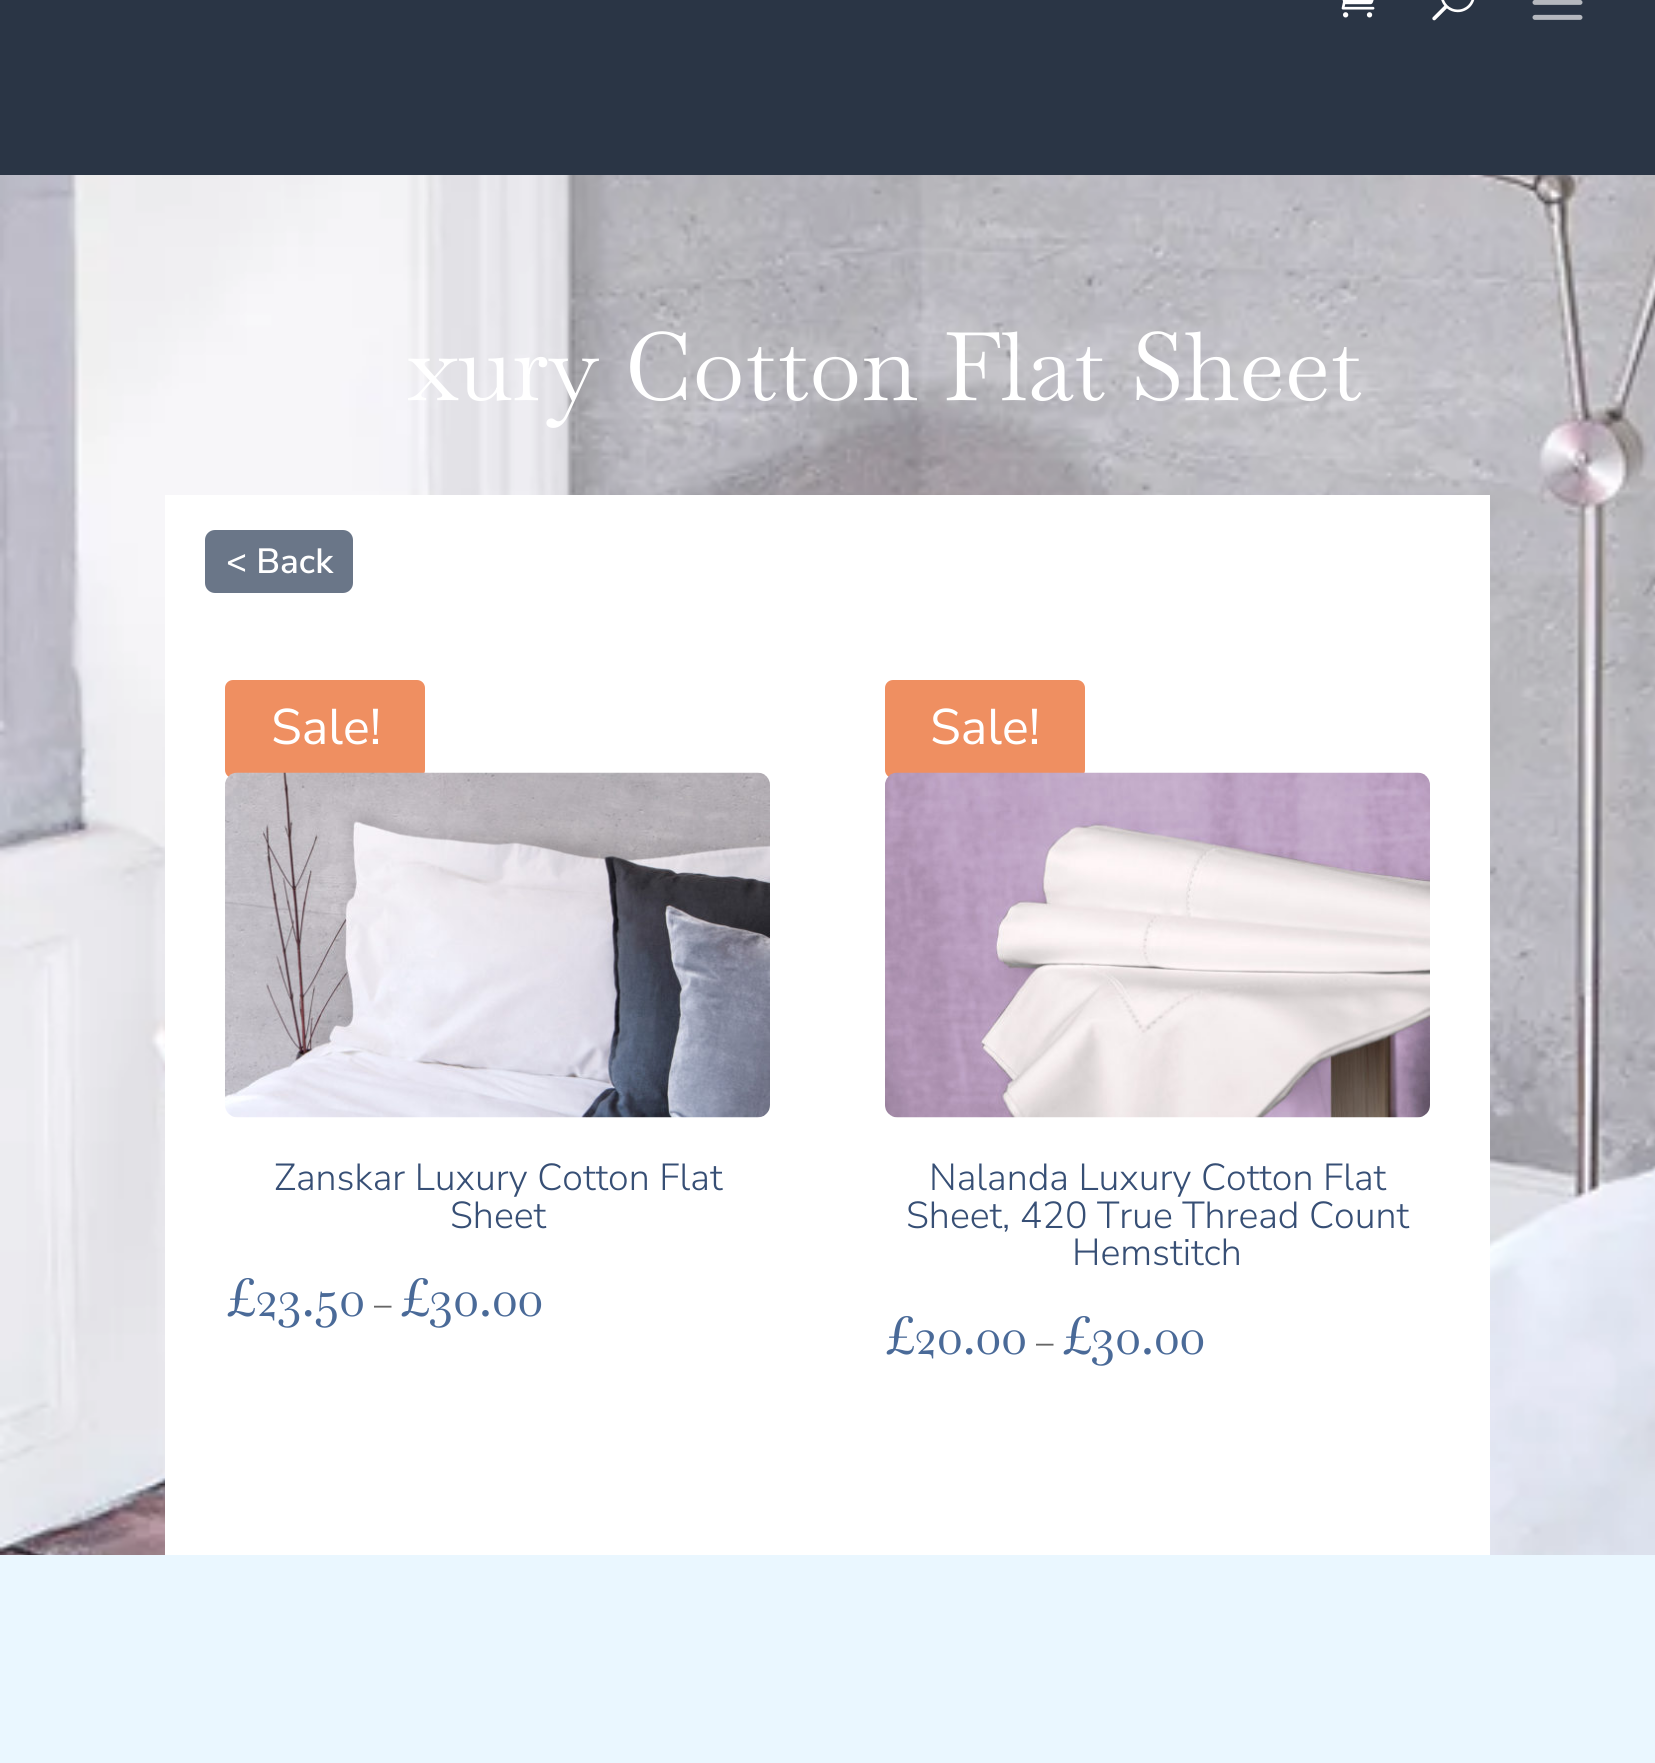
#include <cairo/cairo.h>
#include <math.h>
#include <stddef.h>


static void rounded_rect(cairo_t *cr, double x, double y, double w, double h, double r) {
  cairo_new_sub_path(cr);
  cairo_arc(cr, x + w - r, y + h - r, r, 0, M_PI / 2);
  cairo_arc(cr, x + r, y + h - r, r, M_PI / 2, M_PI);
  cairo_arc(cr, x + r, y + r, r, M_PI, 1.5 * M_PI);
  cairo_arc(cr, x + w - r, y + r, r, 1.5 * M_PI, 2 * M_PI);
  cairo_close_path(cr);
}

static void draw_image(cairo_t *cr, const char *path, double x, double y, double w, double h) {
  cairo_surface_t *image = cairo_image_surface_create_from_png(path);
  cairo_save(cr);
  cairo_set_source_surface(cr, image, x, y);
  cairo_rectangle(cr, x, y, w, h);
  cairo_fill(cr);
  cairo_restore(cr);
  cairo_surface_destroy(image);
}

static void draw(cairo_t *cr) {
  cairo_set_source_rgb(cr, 1, 1, 1);
  cairo_paint(cr);
  cairo_set_source_rgb(cr, 42 / 255.0, 53 / 255.0, 69 / 255.0);
  cairo_rectangle(cr, 0, 0, 1655, 175);
  cairo_fill(cr);
  draw_image(cr, "images/1.png", 1341, 0, 34, 18);
  draw_image(cr, "images/2.png", 1432, 0, 43, 21);
  draw_image(cr, "images/3.png", 1532, 0, 51, 20);
  draw_image(cr, "images/4.png", 0, 175, 1655, 1380);
  cairo_set_source_rgb(cr, 1, 1, 1);
  cairo_rectangle(cr, 165, 495, 1325, 1060);
  cairo_fill(cr);
  cairo_set_source_rgb(cr, 106 / 255.0, 118 / 255.0, 136 / 255.0);
  rounded_rect(cr, 207.5, 532.5, 143, 58, 7.5);
  cairo_fill_preserve(cr);
  cairo_set_line_width(cr, 5);
  cairo_stroke(cr);
  cairo_set_source_rgb(cr, 239 / 255.0, 143 / 255.0, 97 / 255.0);
  rounded_rect(cr, 225, 680, 200, 98, 8);
  cairo_fill(cr);
  draw_image(cr, "images/5.png", 225, 772, 545, 346);
  rounded_rect(cr, 885, 680, 200, 98, 8);
  cairo_fill(cr);
  draw_image(cr, "images/6.png", 885, 772, 545, 346);
  cairo_set_source_rgb(cr, 234 / 255.0, 247 / 255.0, 1);
  cairo_rectangle(cr, 0, 1555, 1655, 208);
  cairo_fill(cr);
  cairo_select_font_face(cr, "Baskervville", CAIRO_FONT_SLANT_NORMAL, CAIRO_FONT_WEIGHT_NORMAL);
  cairo_set_font_size(cr, 95);
  cairo_set_source_rgb(cr, 1, 1, 1);
  cairo_move_to(cr, 408, 400);
  cairo_show_text(cr, "xury Cotton Flat Sheet");
  cairo_select_font_face(cr, "Nunito Sans ExtraLight", CAIRO_FONT_SLANT_NORMAL, CAIRO_FONT_WEIGHT_NORMAL);
  cairo_set_font_size(cr, 35);
  cairo_move_to(cr, 226, 573);
  cairo_show_text(cr, "< Back");
  cairo_select_font_face(cr, "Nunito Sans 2 ExtraLight", CAIRO_FONT_SLANT_NORMAL, CAIRO_FONT_WEIGHT_NORMAL);
  cairo_set_font_size(cr, 50);
  cairo_move_to(cr, 271, 744);
  cairo_show_text(cr, "Sale!");
  cairo_select_font_face(cr, "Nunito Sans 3 ExtraLight", CAIRO_FONT_SLANT_NORMAL, CAIRO_FONT_WEIGHT_NORMAL);
  cairo_set_font_size(cr, 37.6);
  cairo_set_source_rgb(cr, 55 / 255.0, 79 / 255.0, 117 / 255.0);
  cairo_move_to(cr, 274, 1190);
  cairo_show_text(cr, "Zanskar Luxury Cotton Flat");
  cairo_move_to(cr, 450, 1228);
  cairo_show_text(cr, "Sheet");
  cairo_select_font_face(cr, "Baskervville", CAIRO_FONT_SLANT_NORMAL, CAIRO_FONT_WEIGHT_NORMAL);
  cairo_set_font_size(cr, 52.5);
  cairo_set_source_rgb(cr, 74 / 255.0, 106 / 255.0, 152 / 255.0);
  cairo_move_to(cr, 226, 1316);
  cairo_show_text(cr, "£23.50");
  cairo_select_font_face(cr, "Nunito Sans 2 ExtraLight", CAIRO_FONT_SLANT_NORMAL, CAIRO_FONT_WEIGHT_NORMAL);
  cairo_set_font_size(cr, 35);
  cairo_set_source_rgb(cr, 102 / 255.0, 102 / 255.0, 102 / 255.0);
  cairo_move_to(cr, 374, 1316);
  cairo_show_text(cr, "–");
  cairo_select_font_face(cr, "Baskervville", CAIRO_FONT_SLANT_NORMAL, CAIRO_FONT_WEIGHT_NORMAL);
  cairo_set_font_size(cr, 52.5);
  cairo_set_source_rgb(cr, 74 / 255.0, 106 / 255.0, 152 / 255.0);
  cairo_move_to(cr, 400, 1316);
  cairo_show_text(cr, "£30.00");
  cairo_select_font_face(cr, "Nunito Sans 2 ExtraLight", CAIRO_FONT_SLANT_NORMAL, CAIRO_FONT_WEIGHT_NORMAL);
  cairo_set_font_size(cr, 50);
  cairo_set_source_rgb(cr, 1, 1, 1);
  cairo_move_to(cr, 930, 744);
  cairo_show_text(cr, "Sale!");
  cairo_select_font_face(cr, "Nunito Sans 3 ExtraLight", CAIRO_FONT_SLANT_NORMAL, CAIRO_FONT_WEIGHT_NORMAL);
  cairo_set_font_size(cr, 37.6);
  cairo_set_source_rgb(cr, 55 / 255.0, 79 / 255.0, 117 / 255.0);
  cairo_move_to(cr, 929, 1190);
  cairo_show_text(cr, "Nalanda Luxury Cotton Flat");
  cairo_move_to(cr, 906, 1228);
  cairo_show_text(cr, "Sheet, 420 True Thread Count");
  cairo_move_to(cr, 1072, 1265);
  cairo_show_text(cr, "Hemstitch");
  cairo_select_font_face(cr, "Baskervville", CAIRO_FONT_SLANT_NORMAL, CAIRO_FONT_WEIGHT_NORMAL);
  cairo_set_font_size(cr, 52.5);
  cairo_set_source_rgb(cr, 74 / 255.0, 106 / 255.0, 152 / 255.0);
  cairo_move_to(cr, 885, 1354);
  cairo_show_text(cr, "£20.00");
  cairo_select_font_face(cr, "Nunito Sans 2 ExtraLight", CAIRO_FONT_SLANT_NORMAL, CAIRO_FONT_WEIGHT_NORMAL);
  cairo_set_font_size(cr, 35);
  cairo_set_source_rgb(cr, 102 / 255.0, 102 / 255.0, 102 / 255.0);
  cairo_move_to(cr, 1036, 1354);
  cairo_show_text(cr, "–");
  cairo_select_font_face(cr, "Baskervville", CAIRO_FONT_SLANT_NORMAL, CAIRO_FONT_WEIGHT_NORMAL);
  cairo_set_font_size(cr, 52.5);
  cairo_set_source_rgb(cr, 74 / 255.0, 106 / 255.0, 152 / 255.0);
  cairo_move_to(cr, 1062, 1354);
  cairo_show_text(cr, "£30.00");
}

int main(void) {
  cairo_surface_t *surface = cairo_image_surface_create(CAIRO_FORMAT_RGB24, 1655, 1763);
  cairo_t *cr = cairo_create(surface);
  cairo_font_options_t *options = cairo_font_options_create();
  cairo_font_options_set_hint_metrics(options, CAIRO_HINT_METRICS_OFF);
  cairo_font_options_set_hint_style(options, CAIRO_HINT_STYLE_NONE);
  cairo_set_font_options(cr, options);
  cairo_set_miter_limit(cr, 4);
  draw(cr);
  cairo_surface_write_to_png(surface, "out.png");
  cairo_font_options_destroy(options);
  cairo_destroy(cr);
  cairo_surface_destroy(surface);
  return 0;
}
